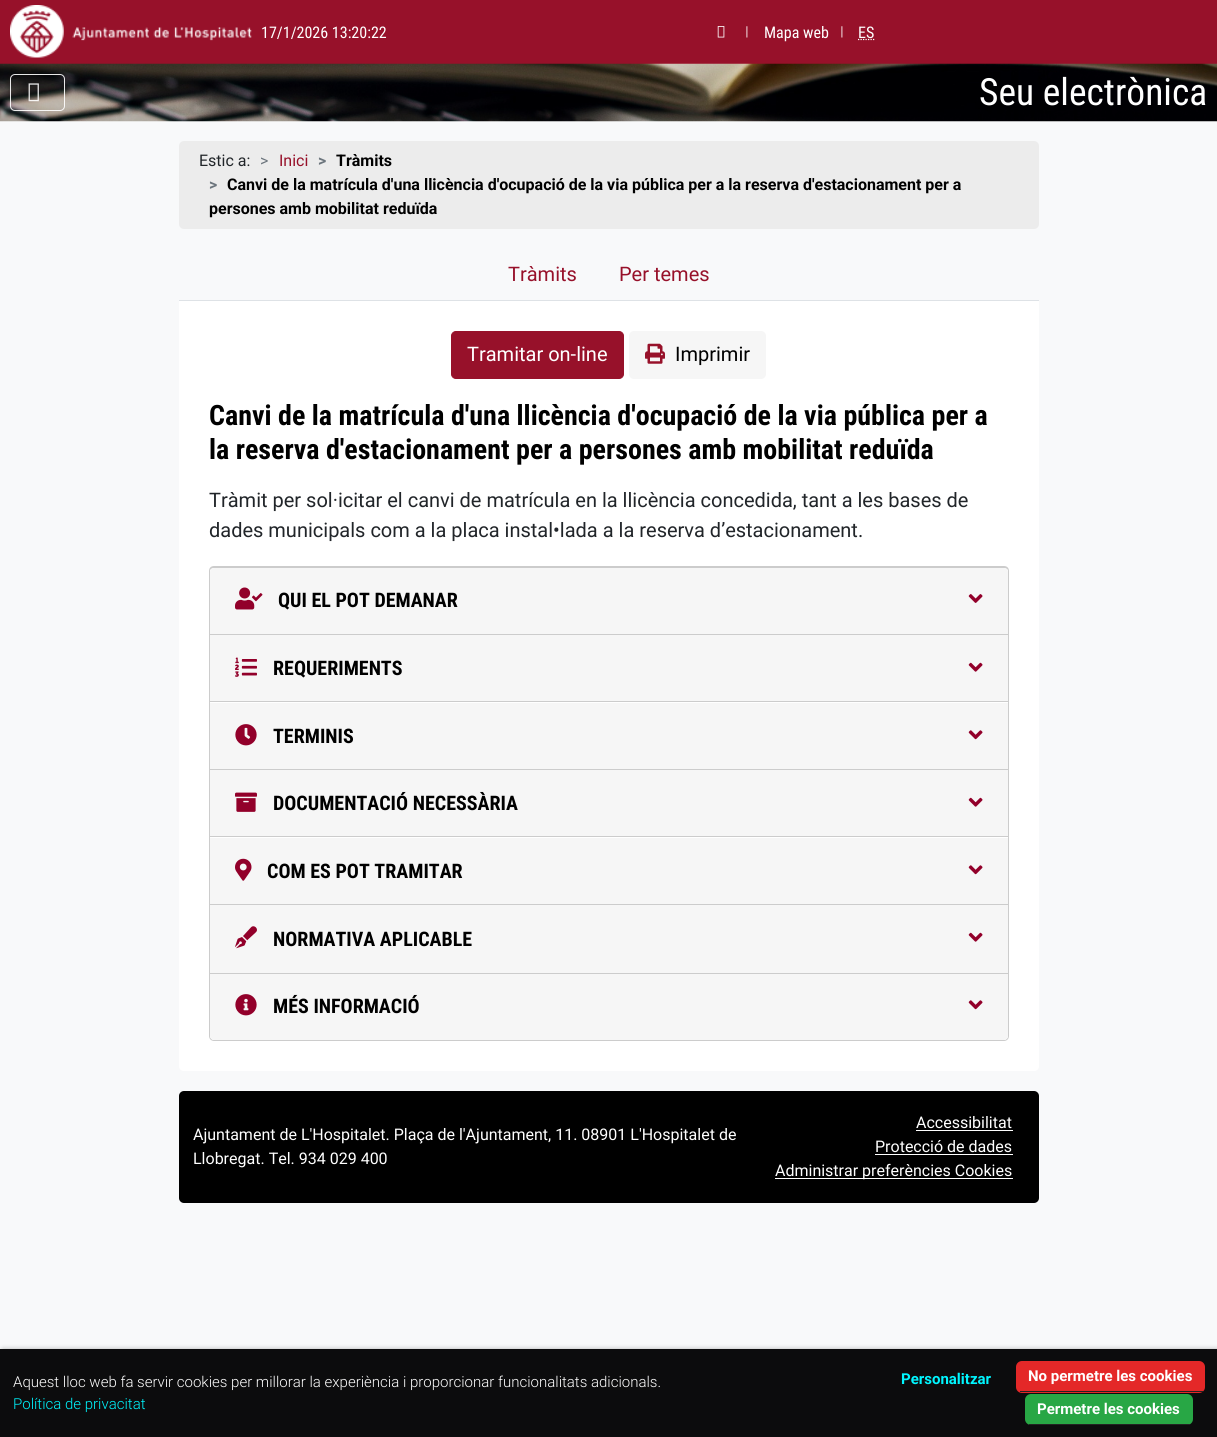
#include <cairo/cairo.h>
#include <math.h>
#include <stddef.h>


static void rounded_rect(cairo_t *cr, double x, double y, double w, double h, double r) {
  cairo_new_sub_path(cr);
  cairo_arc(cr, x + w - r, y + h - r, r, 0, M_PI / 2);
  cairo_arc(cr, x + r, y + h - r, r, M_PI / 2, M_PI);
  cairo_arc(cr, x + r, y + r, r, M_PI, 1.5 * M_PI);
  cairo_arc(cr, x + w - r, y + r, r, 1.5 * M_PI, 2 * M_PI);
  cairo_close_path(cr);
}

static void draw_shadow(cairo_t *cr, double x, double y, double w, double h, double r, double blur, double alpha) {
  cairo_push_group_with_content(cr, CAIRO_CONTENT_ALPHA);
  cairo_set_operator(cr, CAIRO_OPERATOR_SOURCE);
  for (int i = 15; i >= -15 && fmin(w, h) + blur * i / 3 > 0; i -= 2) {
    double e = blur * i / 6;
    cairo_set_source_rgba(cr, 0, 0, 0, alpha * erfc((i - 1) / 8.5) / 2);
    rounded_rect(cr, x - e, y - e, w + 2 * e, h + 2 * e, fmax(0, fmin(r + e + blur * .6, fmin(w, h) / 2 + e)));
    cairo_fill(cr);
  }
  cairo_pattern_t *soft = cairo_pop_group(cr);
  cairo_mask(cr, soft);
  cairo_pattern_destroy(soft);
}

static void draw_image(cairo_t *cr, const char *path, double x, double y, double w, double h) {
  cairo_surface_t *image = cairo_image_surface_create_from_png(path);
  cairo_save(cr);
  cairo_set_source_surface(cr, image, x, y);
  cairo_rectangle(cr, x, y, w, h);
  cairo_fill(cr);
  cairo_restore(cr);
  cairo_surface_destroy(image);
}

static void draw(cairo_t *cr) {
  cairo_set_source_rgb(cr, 248 / 255.0, 249 / 255.0, 250 / 255.0);
  cairo_paint(cr);
  cairo_set_source_rgb(cr, 151 / 255.0, 17 / 255.0, 42 / 255.0);
  cairo_rectangle(cr, 0, 0, 1217, 64);
  cairo_fill(cr);
  draw_image(cr, "images/1.png", 10, 5, 242, 53);
  draw_image(cr, "images/2.png", 746, 26, 2, 12);
  draw_image(cr, "images/3.png", 717, 26, 8, 12);
  draw_image(cr, "images/2.png", 841, 26, 2, 12);
  cairo_new_path(cr);
  cairo_move_to(cr, 858, 39.5);
  cairo_line_to(cr, 874.5, 39.5);
  cairo_set_source_rgb(cr, 1, 1, 1);
  cairo_set_line_width(cr, 1.2);
  cairo_set_dash(cr, (double[]){1.25, 1.25}, 2, 0);
  cairo_stroke(cr);
  draw_image(cr, "images/4.png", 0, 63, 1217, 59);
  rounded_rect(cr, 10.5, 74.5, 54, 36, 4.5);
  cairo_set_source_rgba(cr, 1, 1, 1, 0.9);
  cairo_set_line_width(cr, 1);
  cairo_set_dash(cr, NULL, 0, 0);
  cairo_stroke(cr);
  draw_image(cr, "images/5.png", 28, 83, 11, 19);
  cairo_set_source_rgb(cr, 236 / 255.0, 236 / 255.0, 236 / 255.0);
  rounded_rect(cr, 179, 141, 860, 88, 5);
  cairo_fill(cr);
  cairo_set_source_rgb(cr, 222 / 255.0, 226 / 255.0, 230 / 255.0);
  cairo_rectangle(cr, 179, 300, 860, 1);
  cairo_fill(cr);
  cairo_set_source_rgb(cr, 1, 1, 1);
  cairo_new_path(cr);
  cairo_move_to(cr, 179, 301);
  cairo_line_to(cr, 1039, 301);
  cairo_line_to(cr, 1039, 1066);
  cairo_curve_to(cr, 1039, 1069, 1037, 1071, 1034, 1071);
  cairo_line_to(cr, 184, 1071);
  cairo_curve_to(cr, 181, 1071, 179, 1069, 179, 1066);
  cairo_close_path(cr);
  cairo_fill(cr);
  cairo_set_source_rgb(cr, 151 / 255.0, 17 / 255.0, 42 / 255.0);
  rounded_rect(cr, 451.5, 331.5, 172, 47, 4.5);
  cairo_fill_preserve(cr);
  cairo_stroke(cr);
  cairo_set_source_rgb(cr, 246 / 255.0, 246 / 255.0, 246 / 255.0);
  rounded_rect(cr, 629, 331, 137, 48, 5);
  cairo_fill(cr);
  draw_image(cr, "images/6.png", 645, 343, 20, 21);
  cairo_set_source_rgb(cr, 204 / 255.0, 204 / 255.0, 204 / 255.0);
  cairo_set_fill_rule(cr, CAIRO_FILL_RULE_EVEN_ODD);
  cairo_new_path(cr);
  cairo_move_to(cr, 214, 566);
  cairo_line_to(cr, 1004, 566);
  cairo_curve_to(cr, 1007, 566, 1009, 568, 1009, 571);
  cairo_line_to(cr, 1009, 634);
  cairo_line_to(cr, 209, 634);
  cairo_line_to(cr, 209, 571);
  cairo_curve_to(cr, 209, 568, 211, 566, 214, 566);
  cairo_close_path(cr);
  cairo_move_to(cr, 214, 568);
  cairo_line_to(cr, 1004, 568);
  cairo_curve_to(cr, 1006, 568, 1008, 569, 1008, 571);
  cairo_line_to(cr, 1008, 634);
  cairo_line_to(cr, 210, 634);
  cairo_line_to(cr, 210, 571);
  cairo_curve_to(cr, 210, 569, 212, 568, 214, 568);
  cairo_close_path(cr);
  cairo_fill(cr);
  cairo_set_source_rgb(cr, 246 / 255.0, 246 / 255.0, 246 / 255.0);
  cairo_new_path(cr);
  cairo_move_to(cr, 214, 568);
  cairo_line_to(cr, 1004, 568);
  cairo_curve_to(cr, 1006, 568, 1008, 570, 1008, 572);
  cairo_line_to(cr, 1008, 634);
  cairo_line_to(cr, 210, 634);
  cairo_line_to(cr, 210, 572);
  cairo_curve_to(cr, 210, 570, 212, 568, 214, 568);
  cairo_close_path(cr);
  cairo_fill(cr);
  draw_image(cr, "images/7.png", 235, 587, 28, 23);
  draw_image(cr, "images/8.png", 968, 594, 15, 9);
  cairo_set_source_rgb(cr, 204 / 255.0, 204 / 255.0, 204 / 255.0);
  cairo_rectangle(cr, 209, 634, 800, 1);
  cairo_fill(cr);
  cairo_rectangle(cr, 1008, 634, 1, 67);
  cairo_fill(cr);
  cairo_rectangle(cr, 209, 634, 1, 67);
  cairo_fill(cr);
  cairo_set_source_rgb(cr, 246 / 255.0, 246 / 255.0, 246 / 255.0);
  cairo_rectangle(cr, 210, 635, 798, 66);
  cairo_fill(cr);
  draw_image(cr, "images/9.png", 235, 657, 22, 20);
  draw_image(cr, "images/10.png", 968, 662, 15, 10);
  cairo_set_source_rgb(cr, 204 / 255.0, 204 / 255.0, 204 / 255.0);
  cairo_rectangle(cr, 209, 701, 800, 1);
  cairo_fill(cr);
  cairo_rectangle(cr, 1008, 701, 1, 68);
  cairo_fill(cr);
  cairo_rectangle(cr, 209, 701, 1, 68);
  cairo_fill(cr);
  cairo_set_source_rgb(cr, 246 / 255.0, 246 / 255.0, 246 / 255.0);
  cairo_rectangle(cr, 210, 703, 798, 66);
  cairo_fill(cr);
  draw_image(cr, "images/11.png", 235, 724, 22, 22);
  draw_image(cr, "images/12.png", 968, 730, 15, 10);
  cairo_set_source_rgb(cr, 204 / 255.0, 204 / 255.0, 204 / 255.0);
  cairo_rectangle(cr, 209, 769, 800, 1);
  cairo_fill(cr);
  cairo_rectangle(cr, 1008, 769, 1, 67);
  cairo_fill(cr);
  cairo_rectangle(cr, 209, 769, 1, 67);
  cairo_fill(cr);
  cairo_set_source_rgb(cr, 246 / 255.0, 246 / 255.0, 246 / 255.0);
  cairo_rectangle(cr, 210, 770, 798, 66);
  cairo_fill(cr);
  draw_image(cr, "images/13.png", 235, 792, 22, 20);
  draw_image(cr, "images/10.png", 968, 797, 15, 10);
  cairo_set_source_rgb(cr, 204 / 255.0, 204 / 255.0, 204 / 255.0);
  cairo_rectangle(cr, 209, 836, 800, 1);
  cairo_fill(cr);
  cairo_rectangle(cr, 1008, 836, 1, 68);
  cairo_fill(cr);
  cairo_rectangle(cr, 209, 836, 1, 68);
  cairo_fill(cr);
  cairo_set_source_rgb(cr, 246 / 255.0, 246 / 255.0, 246 / 255.0);
  cairo_rectangle(cr, 210, 838, 798, 66);
  cairo_fill(cr);
  draw_image(cr, "images/14.png", 235, 858, 17, 23);
  draw_image(cr, "images/12.png", 968, 865, 15, 10);
  cairo_set_source_rgb(cr, 204 / 255.0, 204 / 255.0, 204 / 255.0);
  cairo_rectangle(cr, 209, 904, 800, 1);
  cairo_fill(cr);
  cairo_rectangle(cr, 1008, 904, 1, 69);
  cairo_fill(cr);
  cairo_rectangle(cr, 209, 904, 1, 69);
  cairo_fill(cr);
  cairo_set_source_rgb(cr, 246 / 255.0, 246 / 255.0, 246 / 255.0);
  cairo_rectangle(cr, 210, 905, 798, 68);
  cairo_fill(cr);
  draw_image(cr, "images/15.png", 235, 926, 22, 23);
  draw_image(cr, "images/10.png", 968, 932, 15, 10);
  cairo_new_path(cr);
  cairo_move_to(cr, 209.5, 973.5);
  cairo_line_to(cr, 1008.5, 973.5);
  cairo_line_to(cr, 1008.5, 1036);
  cairo_curve_to(cr, 1008.5, 1038.5, 1006.5, 1040.5, 1004, 1040.5);
  cairo_line_to(cr, 214, 1040.5);
  cairo_curve_to(cr, 211.5, 1040.5, 209.5, 1038.5, 209.5, 1036);
  cairo_close_path(cr);
  cairo_set_source_rgb(cr, 204 / 255.0, 204 / 255.0, 204 / 255.0);
  cairo_stroke(cr);
  cairo_set_source_rgb(cr, 246 / 255.0, 246 / 255.0, 246 / 255.0);
  cairo_new_path(cr);
  cairo_move_to(cr, 210, 974);
  cairo_line_to(cr, 1008, 974);
  cairo_line_to(cr, 1008, 1036);
  cairo_curve_to(cr, 1008, 1038, 1006, 1040, 1004, 1040);
  cairo_line_to(cr, 214, 1040);
  cairo_curve_to(cr, 212, 1040, 210, 1038, 210, 1036);
  cairo_close_path(cr);
  cairo_fill(cr);
  draw_image(cr, "images/16.png", 235, 994, 22, 22);
  draw_image(cr, "images/12.png", 968, 1000, 15, 10);
  cairo_set_source_rgb(cr, 0, 0, 0);
  rounded_rect(cr, 179, 1091, 860, 112, 5);
  cairo_fill(cr);
  cairo_set_source_rgb(cr, 1, 1, 1);
  cairo_rectangle(cr, 916, 1130, 97, 1);
  cairo_fill(cr);
  cairo_rectangle(cr, 875, 1154, 138, 1);
  cairo_fill(cr);
  cairo_rectangle(cr, 775, 1178, 238, 1);
  cairo_fill(cr);
  cairo_set_source_rgb(cr, 0, 0, 0);
  draw_shadow(cr, 3, 1351, 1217, 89, 0, 3, 0.6);
  cairo_set_source_rgb(cr, 12 / 255.0, 12 / 255.0, 13 / 255.0);
  cairo_rectangle(cr, 0, 1349, 1217, 88);
  cairo_fill(cr);
  cairo_set_source_rgb(cr, 228 / 255.0, 40 / 255.0, 40 / 255.0);
  rounded_rect(cr, 1016, 1361, 189, 32, 6);
  cairo_fill(cr);
  cairo_set_source_rgb(cr, 34 / 255.0, 34 / 255.0, 34 / 255.0);
  cairo_rectangle(cr, 1020, 1391, 183, 1);
  cairo_fill(cr);
  cairo_set_source_rgb(cr, 40 / 255.0, 167 / 255.0, 69 / 255.0);
  rounded_rect(cr, 1025, 1394, 168, 31, 6);
  cairo_fill(cr);
  cairo_set_source_rgb(cr, 34 / 255.0, 34 / 255.0, 34 / 255.0);
  cairo_rectangle(cr, 1029, 1424, 161, 1);
  cairo_fill(cr);
  cairo_select_font_face(cr, "Roboto Condensed", CAIRO_FONT_SLANT_NORMAL, CAIRO_FONT_WEIGHT_NORMAL);
  cairo_set_font_size(cr, 16);
  cairo_set_source_rgb(cr, 1, 1, 1);
  cairo_move_to(cr, 261, 38);
  cairo_show_text(cr, "17/1/2026 13:20:22");
  cairo_move_to(cr, 764, 38);
  cairo_show_text(cr, "Mapa web");
  cairo_move_to(cr, 858, 38);
  cairo_show_text(cr, "ES");
  cairo_set_font_size(cr, 37.5);
  cairo_move_to(cr, 979, 105);
  cairo_show_text(cr, "Seu electrònica");
  cairo_select_font_face(cr, "Roboto", CAIRO_FONT_SLANT_NORMAL, CAIRO_FONT_WEIGHT_NORMAL);
  cairo_set_font_size(cr, 16);
  cairo_set_source_rgb(cr, 33 / 255.0, 37 / 255.0, 41 / 255.0);
  cairo_move_to(cr, 199, 166);
  cairo_show_text(cr, "Estic a:");
  cairo_set_source_rgb(cr, 108 / 255.0, 117 / 255.0, 125 / 255.0);
  cairo_move_to(cr, 260, 166);
  cairo_show_text(cr, ">");
  cairo_set_source_rgb(cr, 151 / 255.0, 17 / 255.0, 42 / 255.0);
  cairo_move_to(cr, 279, 166);
  cairo_show_text(cr, "Inici");
  cairo_select_font_face(cr, "Roboto", CAIRO_FONT_SLANT_NORMAL, CAIRO_FONT_WEIGHT_BOLD);
  cairo_set_source_rgb(cr, 108 / 255.0, 117 / 255.0, 125 / 255.0);
  cairo_move_to(cr, 318, 166);
  cairo_show_text(cr, ">");
  cairo_set_source_rgb(cr, 0, 0, 0);
  cairo_move_to(cr, 336, 166);
  cairo_show_text(cr, "Tràmits");
  cairo_set_source_rgb(cr, 108 / 255.0, 117 / 255.0, 125 / 255.0);
  cairo_move_to(cr, 209, 190);
  cairo_show_text(cr, ">");
  cairo_set_source_rgb(cr, 0, 0, 0);
  cairo_move_to(cr, 227, 190);
  cairo_show_text(cr, "Canvi de la matrícula d'una llicència d'ocupació de la via pública per a la reserva d'estacionament per a");
  cairo_move_to(cr, 209, 214);
  cairo_show_text(cr, "persones amb mobilitat reduïda");
  cairo_select_font_face(cr, "Roboto", CAIRO_FONT_SLANT_NORMAL, CAIRO_FONT_WEIGHT_NORMAL);
  cairo_set_font_size(cr, 20);
  cairo_set_source_rgb(cr, 151 / 255.0, 17 / 255.0, 42 / 255.0);
  cairo_move_to(cr, 508, 281);
  cairo_show_text(cr, "Tràmits");
  cairo_move_to(cr, 619, 281);
  cairo_show_text(cr, "Per temes");
  cairo_set_source_rgb(cr, 1, 1, 1);
  cairo_move_to(cr, 467, 361);
  cairo_show_text(cr, "Tramitar on-line");
  cairo_set_source_rgb(cr, 0, 0, 0);
  cairo_move_to(cr, 675, 361);
  cairo_show_text(cr, "Imprimir");
  cairo_select_font_face(cr, "Roboto Condensed", CAIRO_FONT_SLANT_NORMAL, CAIRO_FONT_WEIGHT_BOLD);
  cairo_set_font_size(cr, 28);
  cairo_move_to(cr, 209, 425);
  cairo_show_text(cr, "Canvi de la matrícula d'una llicència d'ocupació de la via pública per a");
  cairo_move_to(cr, 209, 459);
  cairo_show_text(cr, "la reserva d'estacionament per a persones amb mobilitat reduïda");
  cairo_select_font_face(cr, "Roboto", CAIRO_FONT_SLANT_NORMAL, CAIRO_FONT_WEIGHT_NORMAL);
  cairo_set_font_size(cr, 20);
  cairo_set_source_rgb(cr, 33 / 255.0, 37 / 255.0, 41 / 255.0);
  cairo_move_to(cr, 209, 507);
  cairo_show_text(cr, "Tràmit per sol·icitar el canvi de matrícula en la llicència concedida, tant a les bases de");
  cairo_move_to(cr, 209, 537);
  cairo_show_text(cr, "dades municipals com a la placa instal•lada a la reserva d’estacionament.");
  cairo_select_font_face(cr, "Roboto Condensed", CAIRO_FONT_SLANT_NORMAL, CAIRO_FONT_WEIGHT_BOLD);
  cairo_set_source_rgb(cr, 0, 0, 0);
  cairo_move_to(cr, 278, 607);
  cairo_show_text(cr, "QUI EL POT DEMANAR");
  cairo_move_to(cr, 273, 675);
  cairo_show_text(cr, "REQUERIMENTS");
  cairo_move_to(cr, 273, 743);
  cairo_show_text(cr, "TERMINIS");
  cairo_move_to(cr, 273, 810);
  cairo_show_text(cr, "DOCUMENTACIÓ NECESSÀRIA");
  cairo_move_to(cr, 267, 878);
  cairo_show_text(cr, "COM ES POT TRAMITAR");
  cairo_move_to(cr, 273, 946);
  cairo_show_text(cr, "NORMATIVA APLICABLE");
  cairo_move_to(cr, 273, 1013);
  cairo_show_text(cr, "MÉS INFORMACIÓ");
  cairo_select_font_face(cr, "Roboto", CAIRO_FONT_SLANT_NORMAL, CAIRO_FONT_WEIGHT_NORMAL);
  cairo_set_font_size(cr, 16);
  cairo_set_source_rgb(cr, 1, 1, 1);
  cairo_move_to(cr, 193, 1140);
  cairo_show_text(cr, "Ajuntament de L'Hospitalet. Plaça de l'Ajuntament, 11. 08901 L'Hospitalet de");
  cairo_move_to(cr, 193, 1164);
  cairo_show_text(cr, "Llobregat. Tel. 934 029 400");
  cairo_move_to(cr, 916, 1128);
  cairo_show_text(cr, "Accessibilitat");
  cairo_move_to(cr, 875, 1152);
  cairo_show_text(cr, "Protecció de dades");
  cairo_move_to(cr, 775, 1176);
  cairo_show_text(cr, "Administrar preferències Cookies");
  cairo_select_font_face(cr, "Roboto Light", CAIRO_FONT_SLANT_NORMAL, CAIRO_FONT_WEIGHT_NORMAL);
  cairo_set_font_size(cr, 15);
  cairo_move_to(cr, 13, 1387);
  cairo_show_text(cr, "Aquest lloc web fa servir cookies per millorar la experiència i proporcionar funcionalitats adicionals.");
  cairo_set_source_rgb(cr, 0, 246 / 255.0, 1);
  cairo_move_to(cr, 13, 1409);
  cairo_show_text(cr, "Política de privacitat");
  cairo_select_font_face(cr, "Roboto", CAIRO_FONT_SLANT_NORMAL, CAIRO_FONT_WEIGHT_BOLD);
  cairo_move_to(cr, 901, 1384);
  cairo_show_text(cr, "Personalitzar");
  cairo_set_source_rgb(cr, 1, 1, 1);
  cairo_move_to(cr, 1028, 1381);
  cairo_show_text(cr, "No permetre les cookies");
  cairo_move_to(cr, 1037, 1414);
  cairo_show_text(cr, "Permetre les cookies");
}

int main(void) {
  cairo_surface_t *surface = cairo_image_surface_create(CAIRO_FORMAT_RGB24, 1217, 1437);
  cairo_t *cr = cairo_create(surface);
  cairo_font_options_t *options = cairo_font_options_create();
  cairo_font_options_set_hint_metrics(options, CAIRO_HINT_METRICS_OFF);
  cairo_font_options_set_hint_style(options, CAIRO_HINT_STYLE_NONE);
  cairo_set_font_options(cr, options);
  cairo_set_miter_limit(cr, 4);
  draw(cr);
  cairo_surface_write_to_png(surface, "out.png");
  cairo_font_options_destroy(options);
  cairo_destroy(cr);
  cairo_surface_destroy(surface);
  return 0;
}
